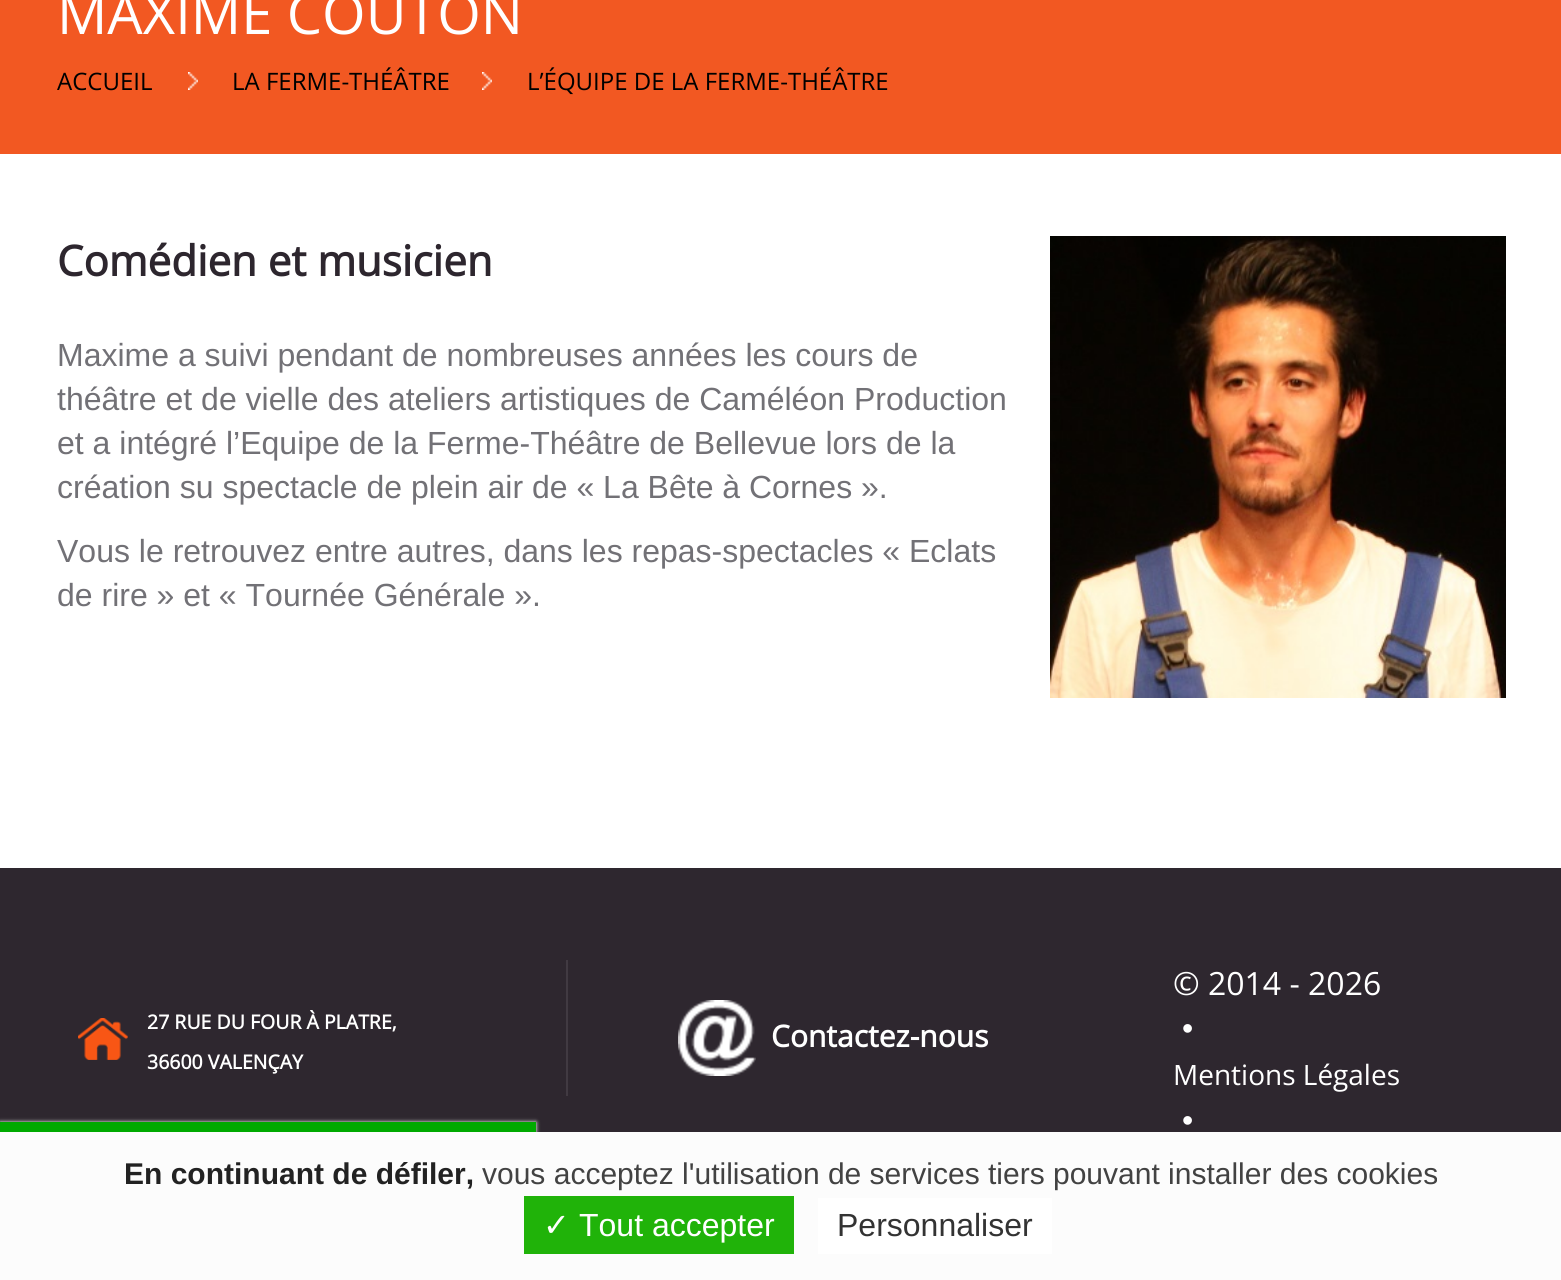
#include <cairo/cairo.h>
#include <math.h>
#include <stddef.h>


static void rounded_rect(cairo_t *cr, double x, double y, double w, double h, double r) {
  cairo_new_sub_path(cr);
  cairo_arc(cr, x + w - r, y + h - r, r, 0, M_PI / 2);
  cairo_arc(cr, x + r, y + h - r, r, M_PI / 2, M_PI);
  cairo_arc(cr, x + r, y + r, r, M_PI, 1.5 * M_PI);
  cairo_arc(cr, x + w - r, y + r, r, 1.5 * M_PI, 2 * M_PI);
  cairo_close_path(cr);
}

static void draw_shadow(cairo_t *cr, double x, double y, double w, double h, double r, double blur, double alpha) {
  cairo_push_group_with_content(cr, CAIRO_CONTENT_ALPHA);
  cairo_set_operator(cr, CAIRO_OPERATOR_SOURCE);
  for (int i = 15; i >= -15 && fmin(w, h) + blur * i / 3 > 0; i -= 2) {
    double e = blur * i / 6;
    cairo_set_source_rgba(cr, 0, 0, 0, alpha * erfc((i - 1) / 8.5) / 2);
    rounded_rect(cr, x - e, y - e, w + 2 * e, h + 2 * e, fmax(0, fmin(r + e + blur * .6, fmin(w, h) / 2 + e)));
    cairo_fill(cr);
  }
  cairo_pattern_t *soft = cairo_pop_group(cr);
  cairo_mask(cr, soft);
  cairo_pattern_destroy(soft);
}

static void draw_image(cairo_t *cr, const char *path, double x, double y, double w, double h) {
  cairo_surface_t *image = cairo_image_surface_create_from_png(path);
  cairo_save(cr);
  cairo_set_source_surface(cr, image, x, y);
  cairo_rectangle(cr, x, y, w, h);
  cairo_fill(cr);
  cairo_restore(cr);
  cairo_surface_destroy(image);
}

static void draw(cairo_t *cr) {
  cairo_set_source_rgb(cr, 46 / 255.0, 39 / 255.0, 47 / 255.0);
  cairo_paint(cr);
  cairo_set_source_rgb(cr, 1, 1, 1);
  cairo_rectangle(cr, 0, 154, 1561, 714);
  cairo_fill(cr);
  cairo_set_source_rgb(cr, 242 / 255.0, 88 / 255.0, 34 / 255.0);
  cairo_rectangle(cr, 0, 0, 1561, 154);
  cairo_fill(cr);
  draw_image(cr, "images/1.png", 188, 72, 10, 18);
  draw_image(cr, "images/1.png", 482, 72, 10, 18);
  draw_image(cr, "images/2.png", 1050, 236, 456, 462);
  cairo_set_source_rgb(cr, 65 / 255.0, 58 / 255.0, 66 / 255.0);
  cairo_rectangle(cr, 566, 960, 2, 136);
  cairo_fill(cr);
  draw_image(cr, "images/3.png", 78, 1018, 50, 42);
  draw_image(cr, "images/4.png", 678, 1000, 78, 76);
  cairo_set_source_rgb(cr, 85 / 255.0, 85 / 255.0, 85 / 255.0);
  draw_shadow(cr, 0, 1124, 536, 10, 0, 2, 1);
  cairo_set_source_rgb(cr, 1, 1, 1);
  draw_shadow(cr, 0, 1122, 536, 10, 0, 2, 1);
  cairo_set_source_rgb(cr, 0, 170 / 255.0, 0);
  cairo_rectangle(cr, 0, 1122, 536, 10);
  cairo_fill(cr);
  cairo_set_source_rgb(cr, 252 / 255.0, 252 / 255.0, 252 / 255.0);
  cairo_rectangle(cr, 0, 1132, 1561, 148);
  cairo_fill(cr);
  cairo_set_source_rgb(cr, 32 / 255.0, 179 / 255.0, 9 / 255.0);
  cairo_rectangle(cr, 524, 1196, 270, 58);
  cairo_fill(cr);
  cairo_set_source_rgb(cr, 1, 1, 1);
  cairo_rectangle(cr, 818, 1198, 234, 56);
  cairo_fill(cr);
  cairo_select_font_face(cr, "Open Sans", CAIRO_FONT_SLANT_NORMAL, CAIRO_FONT_WEIGHT_NORMAL);
  cairo_set_font_size(cr, 56);
  cairo_move_to(cr, 57, 34);
  cairo_show_text(cr, "MAXIME COUTON");
  cairo_set_font_size(cr, 24);
  cairo_set_source_rgb(cr, 0, 0, 0);
  cairo_move_to(cr, 57, 90);
  cairo_show_text(cr, "ACCUEIL");
  cairo_move_to(cr, 232, 90);
  cairo_show_text(cr, "LA FERME-THÉÂTRE");
  cairo_move_to(cr, 527, 90);
  cairo_show_text(cr, "L’ÉQUIPE DE LA FERME-THÉÂTRE");
  cairo_select_font_face(cr, "Open Sans", CAIRO_FONT_SLANT_NORMAL, CAIRO_FONT_WEIGHT_BOLD);
  cairo_set_font_size(cr, 42);
  cairo_set_source_rgb(cr, 45 / 255.0, 38 / 255.0, 46 / 255.0);
  cairo_move_to(cr, 57, 276);
  cairo_show_text(cr, "Comédien et musicien");
  cairo_select_font_face(cr, "Liberation Sans", CAIRO_FONT_SLANT_NORMAL, CAIRO_FONT_WEIGHT_NORMAL);
  cairo_set_font_size(cr, 32);
  cairo_set_source_rgb(cr, 114 / 255.0, 113 / 255.0, 118 / 255.0);
  cairo_move_to(cr, 57, 366);
  cairo_show_text(cr, "Maxime a suivi pendant de nombreuses années les cours de");
  cairo_move_to(cr, 57, 410);
  cairo_show_text(cr, "théâtre et de vielle des ateliers artistiques de Caméléon Production");
  cairo_move_to(cr, 57, 454);
  cairo_show_text(cr, "et a intégré l’Equipe de la Ferme-Théâtre de Bellevue lors de la");
  cairo_move_to(cr, 57, 498);
  cairo_show_text(cr, "création su spectacle de plein air de « La Bête à Cornes ».");
  cairo_move_to(cr, 57, 562);
  cairo_show_text(cr, "Vous le retrouvez entre autres, dans les repas-spectacles « Eclats");
  cairo_move_to(cr, 57, 606);
  cairo_show_text(cr, "de rire » et « Tournée Générale ».");
  cairo_select_font_face(cr, "Open Sans", CAIRO_FONT_SLANT_NORMAL, CAIRO_FONT_WEIGHT_BOLD);
  cairo_set_font_size(cr, 19.5);
  cairo_set_source_rgb(cr, 1, 1, 1);
  cairo_move_to(cr, 147, 1029);
  cairo_show_text(cr, "27 RUE DU FOUR À PLATRE,");
  cairo_move_to(cr, 147, 1069);
  cairo_show_text(cr, "36600 VALENÇAY");
  cairo_set_font_size(cr, 30);
  cairo_move_to(cr, 771, 1047);
  cairo_show_text(cr, "Contactez-nous");
  cairo_select_font_face(cr, "Open Sans", CAIRO_FONT_SLANT_NORMAL, CAIRO_FONT_WEIGHT_NORMAL);
  cairo_set_font_size(cr, 32);
  cairo_move_to(cr, 1173, 995);
  cairo_show_text(cr, "© 2014 - 2026");
  cairo_select_font_face(cr, "Liberation Sans", CAIRO_FONT_SLANT_NORMAL, CAIRO_FONT_WEIGHT_NORMAL);
  cairo_move_to(cr, 1182, 1039);
  cairo_show_text(cr, "•");
  cairo_select_font_face(cr, "Open Sans", CAIRO_FONT_SLANT_NORMAL, CAIRO_FONT_WEIGHT_NORMAL);
  cairo_set_font_size(cr, 28);
  cairo_move_to(cr, 1173, 1085);
  cairo_show_text(cr, "Mentions Légales");
  cairo_select_font_face(cr, "Liberation Sans", CAIRO_FONT_SLANT_NORMAL, CAIRO_FONT_WEIGHT_NORMAL);
  cairo_set_font_size(cr, 32);
  cairo_move_to(cr, 1182, 1131);
  cairo_show_text(cr, "•");
  cairo_select_font_face(cr, "Liberation Sans", CAIRO_FONT_SLANT_NORMAL, CAIRO_FONT_WEIGHT_BOLD);
  cairo_set_font_size(cr, 30);
  cairo_set_source_rgb(cr, 34 / 255.0, 34 / 255.0, 34 / 255.0);
  cairo_move_to(cr, 124, 1184);
  cairo_show_text(cr, "En continuant de défiler,");
  cairo_select_font_face(cr, "Liberation Sans", CAIRO_FONT_SLANT_NORMAL, CAIRO_FONT_WEIGHT_NORMAL);
  cairo_set_source_rgb(cr, 66 / 255.0, 66 / 255.0, 66 / 255.0);
  cairo_move_to(cr, 482, 1184);
  cairo_show_text(cr, "vous acceptez l'utilisation de services tiers pouvant installer des cookies");
  cairo_select_font_face(cr, "DejaVu Sans", CAIRO_FONT_SLANT_NORMAL, CAIRO_FONT_WEIGHT_NORMAL);
  cairo_set_font_size(cr, 32);
  cairo_set_source_rgb(cr, 1, 1, 1);
  cairo_move_to(cr, 543, 1236);
  cairo_show_text(cr, "✓");
  cairo_select_font_face(cr, "Liberation Sans", CAIRO_FONT_SLANT_NORMAL, CAIRO_FONT_WEIGHT_NORMAL);
  cairo_move_to(cr, 579, 1236);
  cairo_show_text(cr, "Tout accepter");
  cairo_set_source_rgb(cr, 51 / 255.0, 51 / 255.0, 51 / 255.0);
  cairo_move_to(cr, 837, 1236);
  cairo_show_text(cr, "Personnaliser");
}

int main(void) {
  cairo_surface_t *surface = cairo_image_surface_create(CAIRO_FORMAT_RGB24, 1561, 1280);
  cairo_t *cr = cairo_create(surface);
  cairo_font_options_t *options = cairo_font_options_create();
  cairo_font_options_set_hint_metrics(options, CAIRO_HINT_METRICS_OFF);
  cairo_font_options_set_hint_style(options, CAIRO_HINT_STYLE_NONE);
  cairo_set_font_options(cr, options);
  cairo_set_miter_limit(cr, 4);
  draw(cr);
  cairo_surface_write_to_png(surface, "out.png");
  cairo_font_options_destroy(options);
  cairo_destroy(cr);
  cairo_surface_destroy(surface);
  return 0;
}
